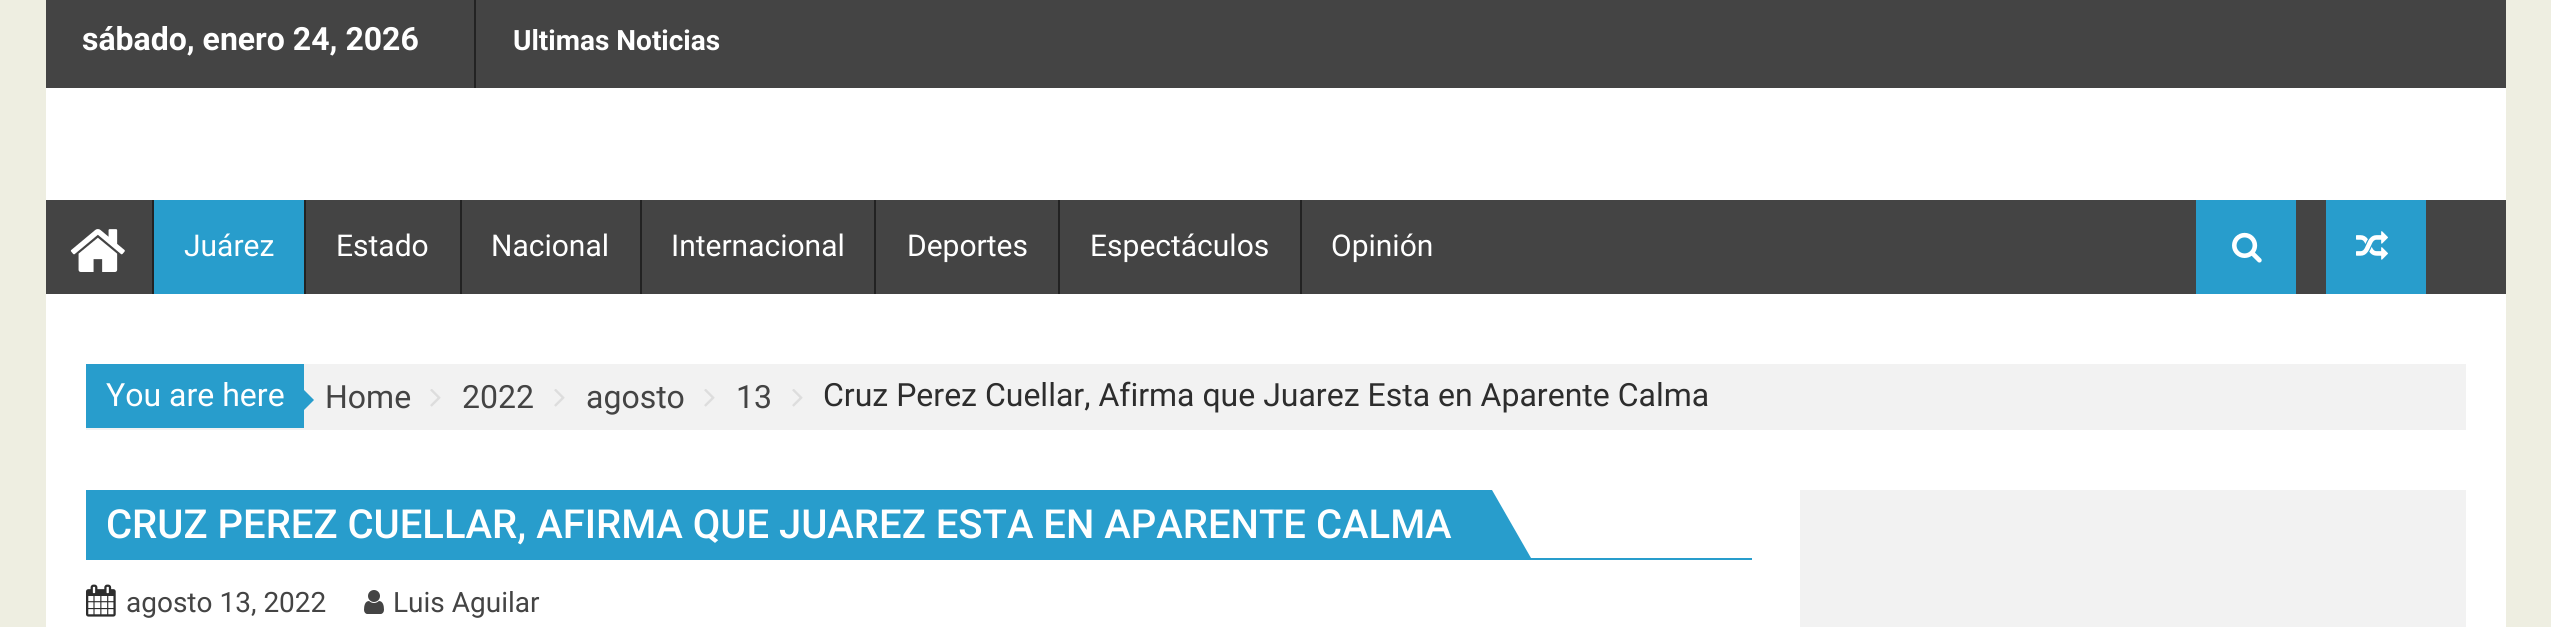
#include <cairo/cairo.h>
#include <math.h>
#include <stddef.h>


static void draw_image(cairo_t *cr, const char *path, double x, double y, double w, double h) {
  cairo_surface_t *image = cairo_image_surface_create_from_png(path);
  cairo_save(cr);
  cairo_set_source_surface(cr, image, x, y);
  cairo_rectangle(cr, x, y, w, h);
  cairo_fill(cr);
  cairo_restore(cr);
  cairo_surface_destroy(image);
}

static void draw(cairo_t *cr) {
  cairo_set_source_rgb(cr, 238 / 255.0, 238 / 255.0, 225 / 255.0);
  cairo_paint(cr);
  cairo_set_source_rgb(cr, 1, 1, 1);
  cairo_rectangle(cr, 46, 88, 2460, 539);
  cairo_fill(cr);
  cairo_set_source_rgb(cr, 68 / 255.0, 68 / 255.0, 68 / 255.0);
  cairo_rectangle(cr, 46, 0, 2460, 88);
  cairo_fill(cr);
  cairo_set_source_rgb(cr, 35 / 255.0, 35 / 255.0, 35 / 255.0);
  cairo_rectangle(cr, 474, 0, 2, 88);
  cairo_fill(cr);
  cairo_set_source_rgb(cr, 68 / 255.0, 68 / 255.0, 68 / 255.0);
  cairo_rectangle(cr, 46, 200, 2460, 94);
  cairo_fill(cr);
  draw_image(cr, "images/1.png", 70, 229, 55, 43);
  cairo_set_source_rgb(cr, 34 / 255.0, 34 / 255.0, 34 / 255.0);
  cairo_rectangle(cr, 152, 200, 2, 94);
  cairo_fill(cr);
  cairo_set_source_rgb(cr, 40 / 255.0, 157 / 255.0, 204 / 255.0);
  cairo_rectangle(cr, 154, 200, 150, 94);
  cairo_fill(cr);
  cairo_set_source_rgb(cr, 34 / 255.0, 34 / 255.0, 34 / 255.0);
  cairo_rectangle(cr, 304, 200, 2, 94);
  cairo_fill(cr);
  cairo_rectangle(cr, 460, 200, 2, 94);
  cairo_fill(cr);
  cairo_rectangle(cr, 640, 200, 2, 94);
  cairo_fill(cr);
  cairo_rectangle(cr, 874, 200, 2, 94);
  cairo_fill(cr);
  cairo_rectangle(cr, 1058, 200, 2, 94);
  cairo_fill(cr);
  cairo_rectangle(cr, 1300, 200, 2, 94);
  cairo_fill(cr);
  cairo_set_source_rgb(cr, 40 / 255.0, 157 / 255.0, 204 / 255.0);
  cairo_rectangle(cr, 2196, 200, 100, 94);
  cairo_fill(cr);
  draw_image(cr, "images/2.png", 2232, 232, 30, 31);
  cairo_rectangle(cr, 2326, 200, 100, 94);
  cairo_fill(cr);
  draw_image(cr, "images/3.png", 2356, 231, 32, 29);
  cairo_set_source_rgb(cr, 242 / 255.0, 242 / 255.0, 242 / 255.0);
  cairo_rectangle(cr, 86, 364, 2380, 66);
  cairo_fill(cr);
  cairo_set_source_rgb(cr, 40 / 255.0, 157 / 255.0, 204 / 255.0);
  cairo_rectangle(cr, 86, 364, 218, 64);
  cairo_fill(cr);
  cairo_new_path(cr);
  cairo_move_to(cr, 304, 410);
  cairo_line_to(cr, 304, 390);
  cairo_line_to(cr, 314, 400);
  cairo_close_path(cr);
  cairo_fill(cr);
  draw_image(cr, "images/4.png", 430, 389, 11, 18);
  draw_image(cr, "images/4.png", 554, 389, 11, 18);
  draw_image(cr, "images/4.png", 704, 389, 11, 18);
  draw_image(cr, "images/4.png", 792, 389, 11, 18);
  cairo_rectangle(cr, 86, 558, 1666, 2);
  cairo_fill(cr);
  cairo_rectangle(cr, 86, 490, 1365, 68);
  cairo_fill(cr);
  cairo_new_path(cr);
  cairo_move_to(cr, 1412, 490);
  cairo_line_to(cr, 1492, 490);
  cairo_line_to(cr, 1531, 558);
  cairo_line_to(cr, 1451, 558);
  cairo_close_path(cr);
  cairo_fill(cr);
  draw_image(cr, "images/5.png", 86, 584, 30, 33);
  draw_image(cr, "images/6.png", 364, 590, 20, 24);
  cairo_set_source_rgb(cr, 242 / 255.0, 242 / 255.0, 242 / 255.0);
  cairo_rectangle(cr, 1800, 490, 666, 137);
  cairo_fill(cr);
  cairo_select_font_face(cr, "Roboto", CAIRO_FONT_SLANT_NORMAL, CAIRO_FONT_WEIGHT_BOLD);
  cairo_set_font_size(cr, 32);
  cairo_set_source_rgb(cr, 1, 1, 1);
  cairo_move_to(cr, 82, 50);
  cairo_show_text(cr, "sábado, enero 24, 2026");
  cairo_set_font_size(cr, 28);
  cairo_move_to(cr, 513, 50);
  cairo_show_text(cr, "Ultimas Noticias");
  cairo_select_font_face(cr, "Roboto", CAIRO_FONT_SLANT_NORMAL, CAIRO_FONT_WEIGHT_NORMAL);
  cairo_set_font_size(cr, 30);
  cairo_move_to(cr, 184, 256);
  cairo_show_text(cr, "Juárez");
  cairo_move_to(cr, 336, 256);
  cairo_show_text(cr, "Estado");
  cairo_move_to(cr, 491, 256);
  cairo_show_text(cr, "Nacional");
  cairo_move_to(cr, 671, 256);
  cairo_show_text(cr, "Internacional");
  cairo_move_to(cr, 907, 256);
  cairo_show_text(cr, "Deportes");
  cairo_move_to(cr, 1090, 256);
  cairo_show_text(cr, "Espectáculos");
  cairo_move_to(cr, 1331, 256);
  cairo_show_text(cr, "Opinión");
  cairo_set_font_size(cr, 32);
  cairo_move_to(cr, 106, 406);
  cairo_show_text(cr, "You are here");
  cairo_set_source_rgb(cr, 68 / 255.0, 68 / 255.0, 68 / 255.0);
  cairo_move_to(cr, 325, 408);
  cairo_show_text(cr, "Home");
  cairo_move_to(cr, 462, 408);
  cairo_show_text(cr, "2022");
  cairo_move_to(cr, 586, 408);
  cairo_show_text(cr, "agosto");
  cairo_move_to(cr, 736, 408);
  cairo_show_text(cr, "13");
  cairo_set_source_rgb(cr, 45 / 255.0, 45 / 255.0, 45 / 255.0);
  cairo_move_to(cr, 823, 406);
  cairo_show_text(cr, "Cruz Perez Cuellar, Afirma que Juarez Esta en Aparente Calma");
  cairo_select_font_face(cr, "Roboto Medium", CAIRO_FONT_SLANT_NORMAL, CAIRO_FONT_WEIGHT_NORMAL);
  cairo_set_font_size(cr, 40);
  cairo_set_source_rgb(cr, 1, 1, 1);
  cairo_move_to(cr, 106, 538);
  cairo_show_text(cr, "CRUZ PEREZ CUELLAR, AFIRMA QUE JUAREZ ESTA EN APARENTE CALMA");
  cairo_select_font_face(cr, "Roboto", CAIRO_FONT_SLANT_NORMAL, CAIRO_FONT_WEIGHT_NORMAL);
  cairo_set_font_size(cr, 28);
  cairo_set_source_rgb(cr, 68 / 255.0, 68 / 255.0, 68 / 255.0);
  cairo_move_to(cr, 126, 612);
  cairo_show_text(cr, "agosto 13, 2022");
  cairo_move_to(cr, 393, 612);
  cairo_show_text(cr, "Luis Aguilar");
}

int main(void) {
  cairo_surface_t *surface = cairo_image_surface_create(CAIRO_FORMAT_RGB24, 2551, 627);
  cairo_t *cr = cairo_create(surface);
  cairo_font_options_t *options = cairo_font_options_create();
  cairo_font_options_set_hint_metrics(options, CAIRO_HINT_METRICS_OFF);
  cairo_font_options_set_hint_style(options, CAIRO_HINT_STYLE_NONE);
  cairo_set_font_options(cr, options);
  cairo_set_miter_limit(cr, 4);
  draw(cr);
  cairo_surface_write_to_png(surface, "out.png");
  cairo_font_options_destroy(options);
  cairo_destroy(cr);
  cairo_surface_destroy(surface);
  return 0;
}
